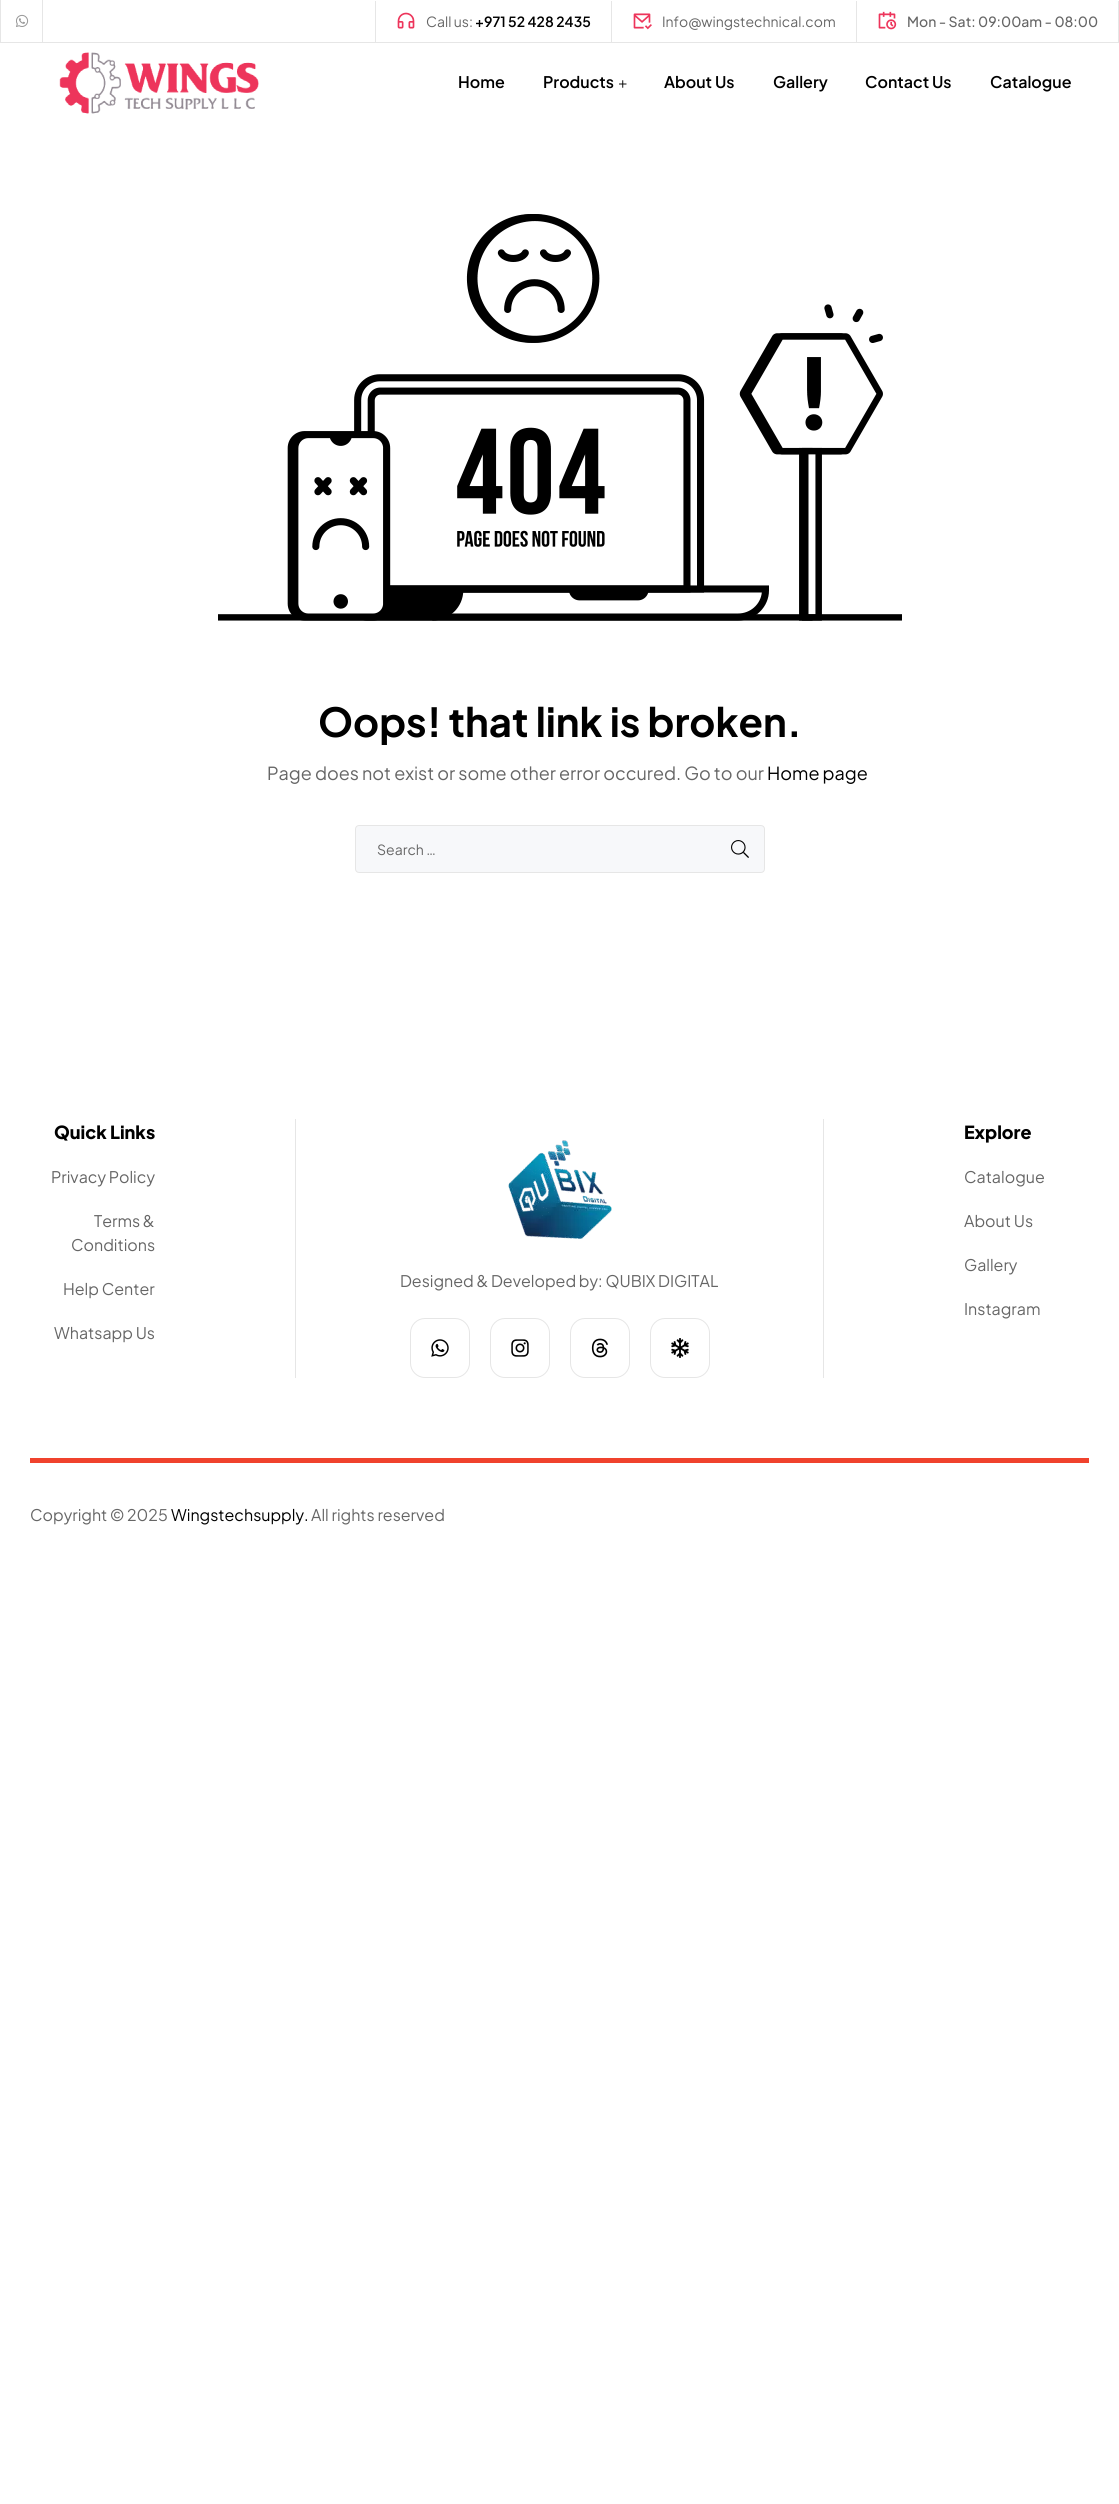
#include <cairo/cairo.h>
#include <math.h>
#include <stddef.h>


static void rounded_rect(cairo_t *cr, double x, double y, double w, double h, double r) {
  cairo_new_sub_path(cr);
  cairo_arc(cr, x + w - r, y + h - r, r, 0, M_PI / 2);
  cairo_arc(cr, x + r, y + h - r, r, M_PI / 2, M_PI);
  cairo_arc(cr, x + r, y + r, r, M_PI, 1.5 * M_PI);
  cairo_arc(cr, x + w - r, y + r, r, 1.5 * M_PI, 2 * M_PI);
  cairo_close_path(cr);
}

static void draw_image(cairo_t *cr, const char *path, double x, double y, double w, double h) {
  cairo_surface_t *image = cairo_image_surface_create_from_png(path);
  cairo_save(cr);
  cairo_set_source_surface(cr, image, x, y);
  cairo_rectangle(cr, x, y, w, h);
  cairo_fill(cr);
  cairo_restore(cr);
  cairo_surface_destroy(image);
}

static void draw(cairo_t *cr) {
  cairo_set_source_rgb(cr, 1, 1, 1);
  cairo_paint(cr);
  cairo_set_source_rgb(cr, 230 / 255.0, 230 / 255.0, 230 / 255.0);
  cairo_rectangle(cr, 0, 42, 1119, 1);
  cairo_fill(cr);
  cairo_rectangle(cr, 0, 0, 1, 42);
  cairo_fill(cr);
  cairo_rectangle(cr, 42, 0, 1, 42);
  cairo_fill(cr);
  draw_image(cr, "images/1.png", 16, 14, 13, 13);
  cairo_rectangle(cr, 375, 1, 1, 41);
  cairo_fill(cr);
  draw_image(cr, "images/2.png", 397, 12, 18, 17);
  cairo_rectangle(cr, 611, 1, 1, 41);
  cairo_fill(cr);
  draw_image(cr, "images/3.png", 633, 13, 19, 17);
  cairo_rectangle(cr, 1118, 1, 1, 41);
  cairo_fill(cr);
  cairo_rectangle(cr, 856, 1, 1, 41);
  cairo_fill(cr);
  draw_image(cr, "images/4.png", 878, 11, 19, 19);
  draw_image(cr, "images/5.png", 59, 52, 200, 62);
  draw_image(cr, "images/6.png", 619, 80, 8, 8);
  draw_image(cr, "images/7.png", 218, 214, 684, 407);
  cairo_set_source_rgb(cr, 247 / 255.0, 248 / 255.0, 250 / 255.0);
  rounded_rect(cr, 355.5, 825.5, 409, 47, 3.5);
  cairo_fill_preserve(cr);
  cairo_set_source_rgb(cr, 230 / 255.0, 230 / 255.0, 230 / 255.0);
  cairo_set_line_width(cr, 1);
  cairo_stroke(cr);
  draw_image(cr, "images/8.png", 731, 840, 18, 18);
  cairo_rectangle(cr, 823, 1119, 1, 259);
  cairo_fill(cr);
  cairo_rectangle(cr, 295, 1119, 1, 259);
  cairo_fill(cr);
  draw_image(cr, "images/9.png", 508, 1140, 104, 99);
  rounded_rect(cr, 410.5, 1318.5, 59, 59, 14.5);
  cairo_stroke(cr);
  draw_image(cr, "images/10.png", 431, 1339, 18, 18);
  rounded_rect(cr, 490.5, 1318.5, 59, 59, 14.5);
  cairo_stroke(cr);
  draw_image(cr, "images/11.png", 511, 1339, 18, 18);
  rounded_rect(cr, 570.5, 1318.5, 59, 59, 14.5);
  cairo_stroke(cr);
  draw_image(cr, "images/12.png", 591, 1338, 17, 20);
  rounded_rect(cr, 650.5, 1318.5, 59, 59, 14.5);
  cairo_stroke(cr);
  draw_image(cr, "images/13.png", 671, 1338, 18, 20);
  cairo_set_source_rgb(cr, 240 / 255.0, 66 / 255.0, 45 / 255.0);
  cairo_rectangle(cr, 30, 1458, 1059, 5);
  cairo_fill(cr);
  cairo_select_font_face(cr, "Plus Jakarta Sans", CAIRO_FONT_SLANT_NORMAL, CAIRO_FONT_WEIGHT_NORMAL);
  cairo_set_font_size(cr, 14);
  cairo_set_source_rgb(cr, 102 / 255.0, 102 / 255.0, 102 / 255.0);
  cairo_move_to(cr, 426, 27);
  cairo_show_text(cr, "Call us:");
  cairo_select_font_face(cr, "Plus Jakarta Sans SemiBold", CAIRO_FONT_SLANT_NORMAL, CAIRO_FONT_WEIGHT_NORMAL);
  cairo_set_source_rgb(cr, 0, 0, 0);
  cairo_move_to(cr, 475, 27);
  cairo_show_text(cr, "+971 52 428 2435");
  cairo_select_font_face(cr, "Plus Jakarta Sans", CAIRO_FONT_SLANT_NORMAL, CAIRO_FONT_WEIGHT_NORMAL);
  cairo_set_source_rgb(cr, 102 / 255.0, 102 / 255.0, 102 / 255.0);
  cairo_move_to(cr, 662, 27);
  cairo_show_text(cr, "Info@wingstechnical.com");
  cairo_select_font_face(cr, "Plus Jakarta Sans Medium", CAIRO_FONT_SLANT_NORMAL, CAIRO_FONT_WEIGHT_NORMAL);
  cairo_move_to(cr, 907, 27);
  cairo_show_text(cr, "Mon - Sat: 09:00am - 08:00");
  cairo_select_font_face(cr, "Plus Jakarta Sans SemiBold", CAIRO_FONT_SLANT_NORMAL, CAIRO_FONT_WEIGHT_NORMAL);
  cairo_set_font_size(cr, 16);
  cairo_set_source_rgb(cr, 0, 0, 0);
  cairo_move_to(cr, 458, 88);
  cairo_show_text(cr, "Home");
  cairo_move_to(cr, 543, 88);
  cairo_show_text(cr, "Products");
  cairo_move_to(cr, 664, 88);
  cairo_show_text(cr, "About Us");
  cairo_move_to(cr, 773, 88);
  cairo_show_text(cr, "Gallery");
  cairo_move_to(cr, 865, 88);
  cairo_show_text(cr, "Contact Us");
  cairo_move_to(cr, 990, 88);
  cairo_show_text(cr, "Catalogue");
  cairo_select_font_face(cr, "Plus Jakarta Sans", CAIRO_FONT_SLANT_NORMAL, CAIRO_FONT_WEIGHT_BOLD);
  cairo_set_font_size(cr, 40);
  cairo_move_to(cr, 318, 737);
  cairo_show_text(cr, "Oops! that link is broken.");
  cairo_select_font_face(cr, "Plus Jakarta Sans", CAIRO_FONT_SLANT_NORMAL, CAIRO_FONT_WEIGHT_NORMAL);
  cairo_set_font_size(cr, 18);
  cairo_set_source_rgb(cr, 102 / 255.0, 102 / 255.0, 102 / 255.0);
  cairo_move_to(cr, 267, 780);
  cairo_show_text(cr, "Page does not exist or some other error occured. Go to our");
  cairo_set_source_rgb(cr, 0, 0, 0);
  cairo_move_to(cr, 767, 780);
  cairo_show_text(cr, "Home page");
  cairo_set_font_size(cr, 14);
  cairo_set_source_rgb(cr, 102 / 255.0, 102 / 255.0, 102 / 255.0);
  cairo_move_to(cr, 377, 855);
  cairo_show_text(cr, "Search …");
  cairo_select_font_face(cr, "Plus Jakarta Sans ExtraBold", CAIRO_FONT_SLANT_NORMAL, CAIRO_FONT_WEIGHT_NORMAL);
  cairo_set_font_size(cr, 18);
  cairo_set_source_rgb(cr, 0, 0, 0);
  cairo_move_to(cr, 54, 1139);
  cairo_show_text(cr, "Quick Links");
  cairo_select_font_face(cr, "Plus Jakarta Sans", CAIRO_FONT_SLANT_NORMAL, CAIRO_FONT_WEIGHT_NORMAL);
  cairo_set_font_size(cr, 16);
  cairo_set_source_rgb(cr, 102 / 255.0, 102 / 255.0, 102 / 255.0);
  cairo_move_to(cr, 51, 1183);
  cairo_show_text(cr, "Privacy Policy");
  cairo_move_to(cr, 94, 1227);
  cairo_show_text(cr, "Terms &");
  cairo_move_to(cr, 71, 1251);
  cairo_show_text(cr, "Conditions");
  cairo_move_to(cr, 63, 1295);
  cairo_show_text(cr, "Help Center");
  cairo_move_to(cr, 54, 1339);
  cairo_show_text(cr, "Whatsapp Us");
  cairo_move_to(cr, 400, 1287);
  cairo_show_text(cr, "Designed & Developed by: QUBIX DIGITAL");
  cairo_select_font_face(cr, "Plus Jakarta Sans ExtraBold", CAIRO_FONT_SLANT_NORMAL, CAIRO_FONT_WEIGHT_NORMAL);
  cairo_set_font_size(cr, 18);
  cairo_set_source_rgb(cr, 0, 0, 0);
  cairo_move_to(cr, 964, 1139);
  cairo_show_text(cr, "Explore");
  cairo_select_font_face(cr, "Plus Jakarta Sans", CAIRO_FONT_SLANT_NORMAL, CAIRO_FONT_WEIGHT_NORMAL);
  cairo_set_font_size(cr, 16);
  cairo_set_source_rgb(cr, 102 / 255.0, 102 / 255.0, 102 / 255.0);
  cairo_move_to(cr, 964, 1183);
  cairo_show_text(cr, "Catalogue");
  cairo_move_to(cr, 964, 1227);
  cairo_show_text(cr, "About Us");
  cairo_move_to(cr, 964, 1271);
  cairo_show_text(cr, "Gallery");
  cairo_move_to(cr, 964, 1315);
  cairo_show_text(cr, "Instagram");
  cairo_move_to(cr, 30, 1521);
  cairo_show_text(cr, "Copyright © 2025");
  cairo_set_source_rgb(cr, 0, 0, 0);
  cairo_move_to(cr, 171, 1521);
  cairo_show_text(cr, "Wingstechsupply.");
  cairo_set_source_rgb(cr, 102 / 255.0, 102 / 255.0, 102 / 255.0);
  cairo_move_to(cr, 311, 1521);
  cairo_show_text(cr, "All rights reserved");
}

int main(void) {
  cairo_surface_t *surface = cairo_image_surface_create(CAIRO_FORMAT_RGB24, 1119, 2504);
  cairo_t *cr = cairo_create(surface);
  cairo_font_options_t *options = cairo_font_options_create();
  cairo_font_options_set_hint_metrics(options, CAIRO_HINT_METRICS_OFF);
  cairo_font_options_set_hint_style(options, CAIRO_HINT_STYLE_NONE);
  cairo_set_font_options(cr, options);
  cairo_set_miter_limit(cr, 4);
  draw(cr);
  cairo_surface_write_to_png(surface, "out.png");
  cairo_font_options_destroy(options);
  cairo_destroy(cr);
  cairo_surface_destroy(surface);
  return 0;
}
